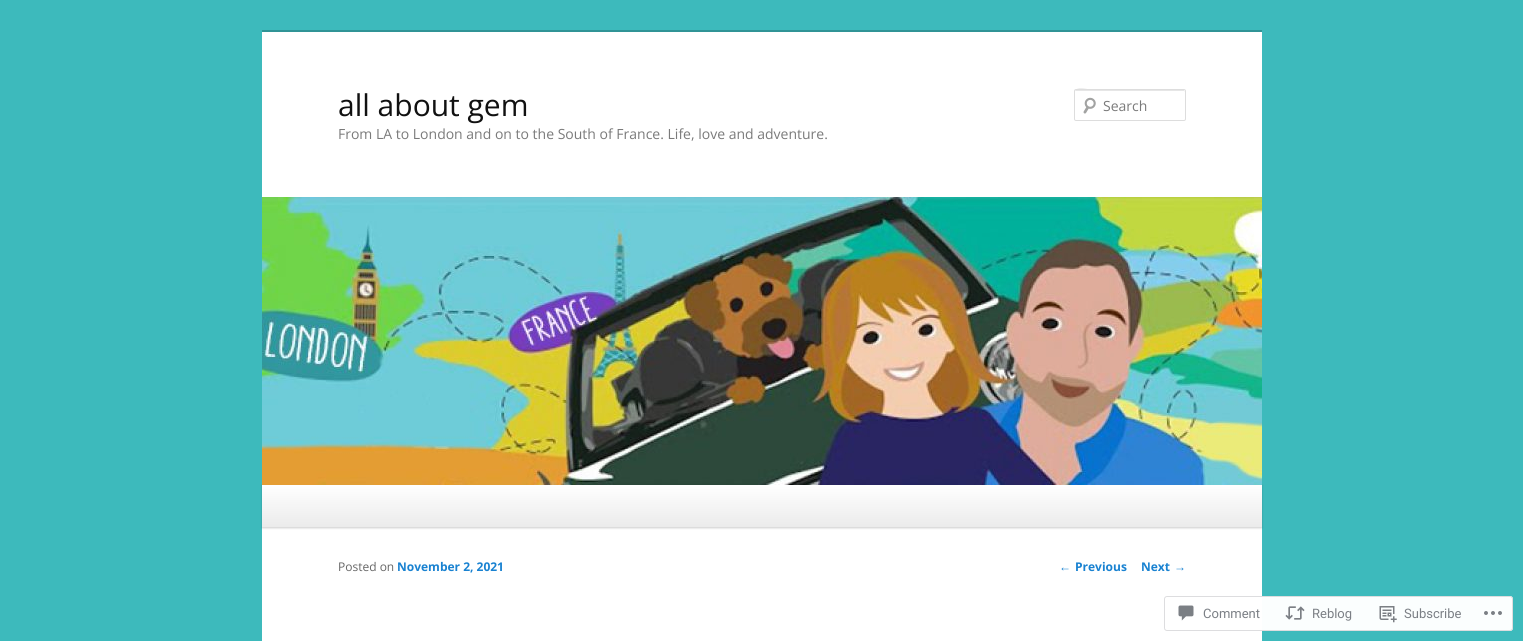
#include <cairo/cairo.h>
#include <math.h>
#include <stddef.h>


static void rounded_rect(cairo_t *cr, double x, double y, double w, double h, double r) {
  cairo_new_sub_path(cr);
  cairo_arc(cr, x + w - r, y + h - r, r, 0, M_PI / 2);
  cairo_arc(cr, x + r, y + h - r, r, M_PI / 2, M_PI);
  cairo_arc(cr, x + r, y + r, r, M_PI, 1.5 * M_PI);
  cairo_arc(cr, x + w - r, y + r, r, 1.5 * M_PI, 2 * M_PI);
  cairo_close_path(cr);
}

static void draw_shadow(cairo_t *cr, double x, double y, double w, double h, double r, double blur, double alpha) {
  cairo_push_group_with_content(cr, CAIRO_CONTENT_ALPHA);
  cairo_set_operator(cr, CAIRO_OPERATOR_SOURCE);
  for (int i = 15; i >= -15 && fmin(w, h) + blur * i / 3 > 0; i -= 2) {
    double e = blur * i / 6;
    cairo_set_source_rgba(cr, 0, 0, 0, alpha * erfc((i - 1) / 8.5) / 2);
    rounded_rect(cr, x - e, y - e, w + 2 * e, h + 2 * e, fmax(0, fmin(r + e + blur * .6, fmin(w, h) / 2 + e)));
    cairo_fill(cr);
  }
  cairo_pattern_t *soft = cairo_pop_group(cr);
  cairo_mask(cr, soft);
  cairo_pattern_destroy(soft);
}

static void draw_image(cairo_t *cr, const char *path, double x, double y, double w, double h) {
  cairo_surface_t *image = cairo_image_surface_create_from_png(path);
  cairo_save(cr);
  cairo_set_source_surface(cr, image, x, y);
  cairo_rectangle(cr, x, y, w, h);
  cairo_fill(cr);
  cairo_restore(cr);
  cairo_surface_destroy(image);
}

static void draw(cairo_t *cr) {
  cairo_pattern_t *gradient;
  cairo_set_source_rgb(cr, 61 / 255.0, 186 / 255.0, 188 / 255.0);
  cairo_paint(cr);
  cairo_set_source_rgb(cr, 1, 1, 1);
  cairo_rectangle(cr, 262, 32, 1000, 609);
  cairo_fill(cr);
  cairo_set_source_rgb(cr, 48 / 255.0, 148 / 255.0, 150 / 255.0);
  cairo_rectangle(cr, 262, 30, 1000, 2);
  cairo_fill(cr);
  draw_image(cr, "images/1.png", 1083, 97, 13, 17);
  cairo_set_source_rgb(cr, 230 / 255.0, 230 / 255.0, 230 / 255.0);
  cairo_new_path(cr);
  cairo_move_to(cr, 1076, 91);
  cairo_line_to(cr, 1185, 91);
  cairo_line_to(cr, 1185, 92);
  cairo_line_to(cr, 1184, 90);
  cairo_line_to(cr, 1094, 90);
  cairo_curve_to(cr, 1090, 90, 1075, 85, 1075, 92);
  cairo_curve_to(cr, 1075, 91, 1075, 91, 1076, 91);
  cairo_close_path(cr);
  cairo_fill(cr);
  rounded_rect(cr, 1074.5, 89.5, 111, 31, 1.5);
  cairo_set_source_rgb(cr, 221 / 255.0, 221 / 255.0, 221 / 255.0);
  cairo_set_line_width(cr, 1);
  cairo_stroke(cr);
  cairo_set_source_rgb(cr, 0, 0, 0);
  draw_shadow(cr, 262, 485, 1000, 43, 0, 1, 0.2);
  draw_image(cr, "images/2.png", 262, 197, 1000, 288);
  gradient = cairo_pattern_create_linear(762, 484, 762, 527);
  cairo_pattern_add_color_stop_rgba(gradient, 0, 1, 1, 1, 1);
  cairo_pattern_add_color_stop_rgba(gradient, 1, 235 / 255.0, 235 / 255.0, 235 / 255.0, 1);
  cairo_set_source(cr, gradient);
  cairo_pattern_destroy(gradient);
  cairo_rectangle(cr, 262, 485, 1000, 42);
  cairo_fill(cr);
  cairo_set_source_rgba(cr, 1, 1, 1, 0.98);
  rounded_rect(cr, 1164, 596, 349, 35, 3);
  cairo_fill(cr);
  rounded_rect(cr, 1164.5, 596.5, 348, 34, 2.5);
  cairo_set_source_rgba(cr, 220 / 255.0, 220 / 255.0, 222 / 255.0, 0.98);
  cairo_stroke(cr);
  draw_image(cr, "images/3.png", 1178, 605, 16, 16);
  draw_image(cr, "images/4.png", 1285, 606, 20, 14);
  draw_image(cr, "images/5.png", 1379, 606, 18, 17);
  draw_image(cr, "images/6.png", 1484, 611, 18, 4);
  cairo_select_font_face(cr, "Open Sans", CAIRO_FONT_SLANT_NORMAL, CAIRO_FONT_WEIGHT_NORMAL);
  cairo_set_font_size(cr, 30);
  cairo_set_source_rgb(cr, 17 / 255.0, 17 / 255.0, 17 / 255.0);
  cairo_move_to(cr, 338, 116);
  cairo_show_text(cr, "all about gem");
  cairo_set_font_size(cr, 14);
  cairo_set_source_rgb(cr, 122 / 255.0, 122 / 255.0, 122 / 255.0);
  cairo_move_to(cr, 338, 139);
  cairo_show_text(cr, "From LA to London and on to the South of France. Life, love and adventure.");
  cairo_move_to(cr, 1103, 111);
  cairo_show_text(cr, "Search");
  cairo_set_font_size(cr, 12);
  cairo_set_source_rgb(cr, 102 / 255.0, 102 / 255.0, 102 / 255.0);
  cairo_move_to(cr, 338, 571);
  cairo_show_text(cr, "Posted on");
  cairo_select_font_face(cr, "Open Sans", CAIRO_FONT_SLANT_NORMAL, CAIRO_FONT_WEIGHT_BOLD);
  cairo_set_source_rgb(cr, 25 / 255.0, 130 / 255.0, 209 / 255.0);
  cairo_move_to(cr, 397, 571);
  cairo_show_text(cr, "November 2, 2021");
  cairo_select_font_face(cr, "Liberation Sans", CAIRO_FONT_SLANT_NORMAL, CAIRO_FONT_WEIGHT_NORMAL);
  cairo_move_to(cr, 1059, 571);
  cairo_show_text(cr, "←");
  cairo_select_font_face(cr, "Open Sans", CAIRO_FONT_SLANT_NORMAL, CAIRO_FONT_WEIGHT_BOLD);
  cairo_move_to(cr, 1075, 571);
  cairo_show_text(cr, "Previous");
  cairo_move_to(cr, 1141, 571);
  cairo_show_text(cr, "Next");
  cairo_select_font_face(cr, "Liberation Sans", CAIRO_FONT_SLANT_NORMAL, CAIRO_FONT_WEIGHT_NORMAL);
  cairo_move_to(cr, 1174, 571);
  cairo_show_text(cr, "→");
  cairo_select_font_face(cr, "Roboto", CAIRO_FONT_SLANT_NORMAL, CAIRO_FONT_WEIGHT_NORMAL);
  cairo_set_font_size(cr, 13);
  cairo_set_source_rgb(cr, 123 / 255.0, 127 / 255.0, 133 / 255.0);
  cairo_move_to(cr, 1203, 618);
  cairo_show_text(cr, "Comment");
  cairo_move_to(cr, 1312, 618);
  cairo_show_text(cr, "Reblog");
  cairo_move_to(cr, 1404, 618);
  cairo_show_text(cr, "Subscribe");
}

int main(void) {
  cairo_surface_t *surface = cairo_image_surface_create(CAIRO_FORMAT_RGB24, 1523, 641);
  cairo_t *cr = cairo_create(surface);
  cairo_font_options_t *options = cairo_font_options_create();
  cairo_font_options_set_hint_metrics(options, CAIRO_HINT_METRICS_OFF);
  cairo_font_options_set_hint_style(options, CAIRO_HINT_STYLE_NONE);
  cairo_set_font_options(cr, options);
  cairo_set_miter_limit(cr, 4);
  draw(cr);
  cairo_surface_write_to_png(surface, "out.png");
  cairo_font_options_destroy(options);
  cairo_destroy(cr);
  cairo_surface_destroy(surface);
  return 0;
}
